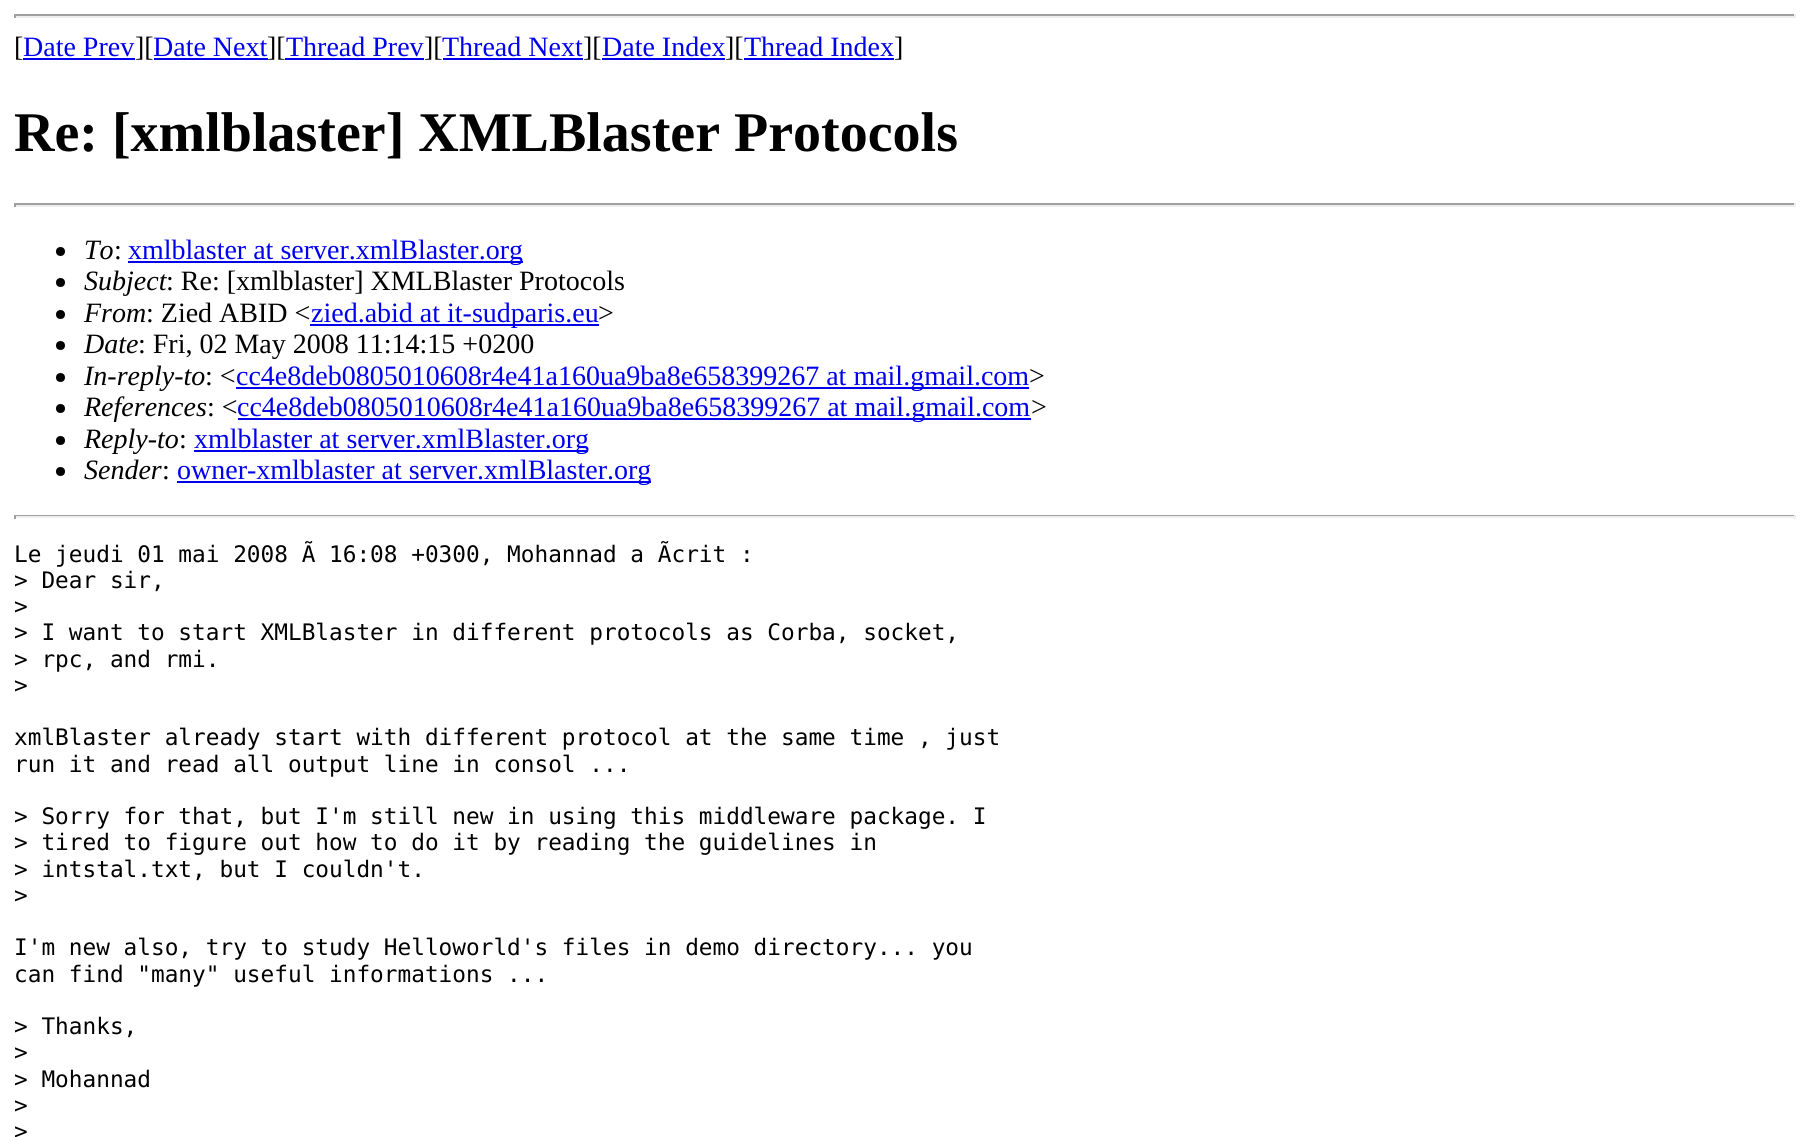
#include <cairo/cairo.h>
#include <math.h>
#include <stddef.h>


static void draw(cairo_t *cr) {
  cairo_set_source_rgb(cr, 1, 1, 1);
  cairo_paint(cr);
  cairo_set_source_rgb(cr, 159 / 255.0, 159 / 255.0, 159 / 255.0);
  cairo_rectangle(cr, 14, 14, 1782, 2);
  cairo_fill(cr);
  cairo_set_source_rgb(cr, 238 / 255.0, 238 / 255.0, 238 / 255.0);
  cairo_rectangle(cr, 1794, 14, 2, 4);
  cairo_fill(cr);
  cairo_rectangle(cr, 14, 16, 1782, 2);
  cairo_fill(cr);
  cairo_set_source_rgb(cr, 159 / 255.0, 159 / 255.0, 159 / 255.0);
  cairo_rectangle(cr, 14, 14, 2, 4);
  cairo_fill(cr);
  cairo_set_source_rgb(cr, 0, 0, 238 / 255.0);
  cairo_rectangle(cr, 23, 58, 112, 2);
  cairo_fill(cr);
  cairo_rectangle(cr, 154, 58, 114, 2);
  cairo_fill(cr);
  cairo_rectangle(cr, 443, 58, 140, 2);
  cairo_fill(cr);
  cairo_rectangle(cr, 602, 58, 123, 2);
  cairo_fill(cr);
  cairo_rectangle(cr, 744, 58, 150, 2);
  cairo_fill(cr);
  cairo_set_source_rgb(cr, 159 / 255.0, 159 / 255.0, 159 / 255.0);
  cairo_rectangle(cr, 14, 203, 1782, 2);
  cairo_fill(cr);
  cairo_set_source_rgb(cr, 238 / 255.0, 238 / 255.0, 238 / 255.0);
  cairo_rectangle(cr, 1794, 203, 2, 4);
  cairo_fill(cr);
  cairo_rectangle(cr, 14, 205, 1782, 2);
  cairo_fill(cr);
  cairo_set_source_rgb(cr, 159 / 255.0, 159 / 255.0, 159 / 255.0);
  cairo_rectangle(cr, 14, 203, 2, 4);
  cairo_fill(cr);
  cairo_set_source_rgb(cr, 0, 0, 0);
  cairo_arc(cr, 60.5, 251.5, 4.5, 0, 2 * M_PI);
  cairo_fill(cr);
  cairo_set_source_rgb(cr, 0, 0, 238 / 255.0);
  cairo_rectangle(cr, 128, 261, 395, 2);
  cairo_fill(cr);
  cairo_set_source_rgb(cr, 0, 0, 0);
  cairo_arc(cr, 60.5, 282.5, 4.5, 0, 2 * M_PI);
  cairo_fill(cr);
  cairo_arc(cr, 60.5, 314.5, 4.5, 0, 2 * M_PI);
  cairo_fill(cr);
  cairo_set_source_rgb(cr, 0, 0, 238 / 255.0);
  cairo_rectangle(cr, 310, 324, 289, 2);
  cairo_fill(cr);
  cairo_set_source_rgb(cr, 0, 0, 0);
  cairo_arc(cr, 60.5, 345.5, 4.5, 0, 2 * M_PI);
  cairo_fill(cr);
  cairo_arc(cr, 60.5, 377.5, 4.5, 0, 2 * M_PI);
  cairo_fill(cr);
  cairo_set_source_rgb(cr, 0, 0, 238 / 255.0);
  cairo_rectangle(cr, 236, 387, 793, 2);
  cairo_fill(cr);
  cairo_set_source_rgb(cr, 0, 0, 0);
  cairo_arc(cr, 60.5, 408.5, 4.5, 0, 2 * M_PI);
  cairo_fill(cr);
  cairo_set_source_rgb(cr, 0, 0, 238 / 255.0);
  cairo_rectangle(cr, 238, 418, 793, 2);
  cairo_fill(cr);
  cairo_set_source_rgb(cr, 0, 0, 0);
  cairo_arc(cr, 60.5, 440.5, 4.5, 0, 2 * M_PI);
  cairo_fill(cr);
  cairo_set_source_rgb(cr, 0, 0, 238 / 255.0);
  cairo_rectangle(cr, 194, 450, 394, 2);
  cairo_fill(cr);
  cairo_set_source_rgb(cr, 0, 0, 0);
  cairo_arc(cr, 60.5, 471.5, 4.5, 0, 2 * M_PI);
  cairo_fill(cr);
  cairo_set_source_rgb(cr, 0, 0, 238 / 255.0);
  cairo_rectangle(cr, 177, 481, 474, 2);
  cairo_fill(cr);
  cairo_set_source_rgb(cr, 159 / 255.0, 159 / 255.0, 159 / 255.0);
  cairo_rectangle(cr, 14, 515, 1782, 1);
  cairo_fill(cr);
  cairo_set_source_rgb(cr, 238 / 255.0, 238 / 255.0, 238 / 255.0);
  cairo_rectangle(cr, 1794, 515, 2, 4);
  cairo_fill(cr);
  cairo_rectangle(cr, 14, 516, 1782, 2);
  cairo_fill(cr);
  cairo_set_source_rgb(cr, 159 / 255.0, 159 / 255.0, 159 / 255.0);
  cairo_rectangle(cr, 14, 515, 2, 4);
  cairo_fill(cr);
  cairo_select_font_face(cr, "Liberation Serif", CAIRO_FONT_SLANT_NORMAL, CAIRO_FONT_WEIGHT_NORMAL);
  cairo_set_font_size(cr, 28);
  cairo_set_source_rgb(cr, 0, 0, 0);
  cairo_move_to(cr, 14, 56);
  cairo_show_text(cr, "[");
  cairo_set_source_rgb(cr, 0, 0, 238 / 255.0);
  cairo_move_to(cr, 23, 56);
  cairo_show_text(cr, "Date Prev");
  cairo_set_source_rgb(cr, 0, 0, 0);
  cairo_move_to(cr, 135, 56);
  cairo_show_text(cr, "][");
  cairo_set_source_rgb(cr, 0, 0, 238 / 255.0);
  cairo_move_to(cr, 153, 56);
  cairo_show_text(cr, "Date Next");
  cairo_set_source_rgb(cr, 0, 0, 0);
  cairo_move_to(cr, 267, 56);
  cairo_show_text(cr, "][");
  cairo_set_source_rgb(cr, 0, 0, 238 / 255.0);
  cairo_move_to(cr, 286, 56);
  cairo_show_text(cr, "Thread Prev");
  cairo_rectangle(cr, 285, 58, 139, 2);
  cairo_fill(cr);
  cairo_set_source_rgb(cr, 0, 0, 0);
  cairo_move_to(cr, 424, 56);
  cairo_show_text(cr, "][");
  cairo_set_source_rgb(cr, 0, 0, 238 / 255.0);
  cairo_move_to(cr, 442, 56);
  cairo_show_text(cr, "Thread Next");
  cairo_set_source_rgb(cr, 0, 0, 0);
  cairo_move_to(cr, 583, 56);
  cairo_show_text(cr, "][");
  cairo_set_source_rgb(cr, 0, 0, 238 / 255.0);
  cairo_move_to(cr, 602, 56);
  cairo_show_text(cr, "Date Index");
  cairo_set_source_rgb(cr, 0, 0, 0);
  cairo_move_to(cr, 725, 56);
  cairo_show_text(cr, "][");
  cairo_set_source_rgb(cr, 0, 0, 238 / 255.0);
  cairo_move_to(cr, 744, 56);
  cairo_show_text(cr, "Thread Index");
  cairo_set_source_rgb(cr, 0, 0, 0);
  cairo_move_to(cr, 894, 56);
  cairo_show_text(cr, "]");
  cairo_select_font_face(cr, "Liberation Serif", CAIRO_FONT_SLANT_NORMAL, CAIRO_FONT_WEIGHT_BOLD);
  cairo_set_font_size(cr, 56);
  cairo_move_to(cr, 14, 151);
  cairo_show_text(cr, "Re: [xmlblaster] XMLBlaster Protocols");
  cairo_select_font_face(cr, "Liberation Serif", CAIRO_FONT_SLANT_ITALIC, CAIRO_FONT_WEIGHT_NORMAL);
  cairo_set_font_size(cr, 28);
  cairo_move_to(cr, 84, 259);
  cairo_show_text(cr, "To");
  cairo_select_font_face(cr, "Liberation Serif", CAIRO_FONT_SLANT_NORMAL, CAIRO_FONT_WEIGHT_NORMAL);
  cairo_move_to(cr, 114, 259);
  cairo_show_text(cr, ":");
  cairo_set_source_rgb(cr, 0, 0, 238 / 255.0);
  cairo_move_to(cr, 128, 259);
  cairo_show_text(cr, "xmlblaster at server.xmlBlaster.org");
  cairo_select_font_face(cr, "Liberation Serif", CAIRO_FONT_SLANT_ITALIC, CAIRO_FONT_WEIGHT_NORMAL);
  cairo_set_source_rgb(cr, 0, 0, 0);
  cairo_move_to(cr, 84, 290);
  cairo_show_text(cr, "Subject");
  cairo_select_font_face(cr, "Liberation Serif", CAIRO_FONT_SLANT_NORMAL, CAIRO_FONT_WEIGHT_NORMAL);
  cairo_move_to(cr, 166, 290);
  cairo_show_text(cr, ": Re: [xmlblaster] XMLBlaster Protocols");
  cairo_select_font_face(cr, "Liberation Serif", CAIRO_FONT_SLANT_ITALIC, CAIRO_FONT_WEIGHT_NORMAL);
  cairo_move_to(cr, 84, 322);
  cairo_show_text(cr, "From");
  cairo_select_font_face(cr, "Liberation Serif", CAIRO_FONT_SLANT_NORMAL, CAIRO_FONT_WEIGHT_NORMAL);
  cairo_move_to(cr, 146, 322);
  cairo_show_text(cr, ": Zied ABID <");
  cairo_set_source_rgb(cr, 0, 0, 238 / 255.0);
  cairo_move_to(cr, 311, 322);
  cairo_show_text(cr, "zied.abid at it-sudparis.eu");
  cairo_set_source_rgb(cr, 0, 0, 0);
  cairo_move_to(cr, 598, 322);
  cairo_show_text(cr, ">");
  cairo_select_font_face(cr, "Liberation Serif", CAIRO_FONT_SLANT_ITALIC, CAIRO_FONT_WEIGHT_NORMAL);
  cairo_move_to(cr, 84, 353);
  cairo_show_text(cr, "Date");
  cairo_select_font_face(cr, "Liberation Serif", CAIRO_FONT_SLANT_NORMAL, CAIRO_FONT_WEIGHT_NORMAL);
  cairo_move_to(cr, 138, 353);
  cairo_show_text(cr, ": Fri, 02 May 2008 11:14:15 +0200");
  cairo_select_font_face(cr, "Liberation Serif", CAIRO_FONT_SLANT_ITALIC, CAIRO_FONT_WEIGHT_NORMAL);
  cairo_move_to(cr, 84, 385);
  cairo_show_text(cr, "In-reply-to");
  cairo_select_font_face(cr, "Liberation Serif", CAIRO_FONT_SLANT_NORMAL, CAIRO_FONT_WEIGHT_NORMAL);
  cairo_move_to(cr, 205, 385);
  cairo_show_text(cr, ": <");
  cairo_set_source_rgb(cr, 0, 0, 238 / 255.0);
  cairo_move_to(cr, 236, 385);
  cairo_show_text(cr, "cc4e8deb0805010608r4e41a160ua9ba8e658399267 at mail.gmail.com");
  cairo_set_source_rgb(cr, 0, 0, 0);
  cairo_move_to(cr, 1029, 385);
  cairo_show_text(cr, ">");
  cairo_select_font_face(cr, "Liberation Serif", CAIRO_FONT_SLANT_ITALIC, CAIRO_FONT_WEIGHT_NORMAL);
  cairo_move_to(cr, 84, 416);
  cairo_show_text(cr, "References");
  cairo_select_font_face(cr, "Liberation Serif", CAIRO_FONT_SLANT_NORMAL, CAIRO_FONT_WEIGHT_NORMAL);
  cairo_move_to(cr, 207, 416);
  cairo_show_text(cr, ": <");
  cairo_set_source_rgb(cr, 0, 0, 238 / 255.0);
  cairo_move_to(cr, 237, 416);
  cairo_show_text(cr, "cc4e8deb0805010608r4e41a160ua9ba8e658399267 at mail.gmail.com");
  cairo_set_source_rgb(cr, 0, 0, 0);
  cairo_move_to(cr, 1031, 416);
  cairo_show_text(cr, ">");
  cairo_select_font_face(cr, "Liberation Serif", CAIRO_FONT_SLANT_ITALIC, CAIRO_FONT_WEIGHT_NORMAL);
  cairo_move_to(cr, 84, 448);
  cairo_show_text(cr, "Reply-to");
  cairo_select_font_face(cr, "Liberation Serif", CAIRO_FONT_SLANT_NORMAL, CAIRO_FONT_WEIGHT_NORMAL);
  cairo_move_to(cr, 179, 448);
  cairo_show_text(cr, ":");
  cairo_set_source_rgb(cr, 0, 0, 238 / 255.0);
  cairo_move_to(cr, 194, 448);
  cairo_show_text(cr, "xmlblaster at server.xmlBlaster.org");
  cairo_select_font_face(cr, "Liberation Serif", CAIRO_FONT_SLANT_ITALIC, CAIRO_FONT_WEIGHT_NORMAL);
  cairo_set_source_rgb(cr, 0, 0, 0);
  cairo_move_to(cr, 84, 479);
  cairo_show_text(cr, "Sender");
  cairo_select_font_face(cr, "Liberation Serif", CAIRO_FONT_SLANT_NORMAL, CAIRO_FONT_WEIGHT_NORMAL);
  cairo_move_to(cr, 162, 479);
  cairo_show_text(cr, ":");
  cairo_set_source_rgb(cr, 0, 0, 238 / 255.0);
  cairo_move_to(cr, 177, 479);
  cairo_show_text(cr, "owner-xmlblaster at server.xmlBlaster.org");
  cairo_select_font_face(cr, "DejaVu Sans Mono", CAIRO_FONT_SLANT_NORMAL, CAIRO_FONT_WEIGHT_NORMAL);
  cairo_set_font_size(cr, 22.75);
  cairo_set_source_rgb(cr, 0, 0, 0);
  cairo_move_to(cr, 14, 562);
  cairo_show_text(cr, "Le jeudi 01 mai 2008 Ã 16:08 +0300, Mohannad a Ãcrit :");
  cairo_move_to(cr, 14, 588);
  cairo_show_text(cr, "> Dear sir,");
  cairo_move_to(cr, 14, 614);
  cairo_show_text(cr, ">");
  cairo_move_to(cr, 14, 640);
  cairo_show_text(cr, "> I want to start XMLBlaster in different protocols as Corba, socket,");
  cairo_move_to(cr, 14, 667);
  cairo_show_text(cr, "> rpc, and rmi.");
  cairo_move_to(cr, 14, 693);
  cairo_show_text(cr, ">");
  cairo_move_to(cr, 14, 745);
  cairo_show_text(cr, "xmlBlaster already start with different protocol at the same time , just");
  cairo_move_to(cr, 14, 772);
  cairo_show_text(cr, "run it and read all output line in consol ...");
  cairo_move_to(cr, 14, 824);
  cairo_show_text(cr, "> Sorry for that, but I'm still new in using this middleware package. I");
  cairo_move_to(cr, 14, 850);
  cairo_show_text(cr, "> tired to figure out how to do it by reading the guidelines in");
  cairo_move_to(cr, 14, 877);
  cairo_show_text(cr, "> intstal.txt, but I couldn't.");
  cairo_move_to(cr, 14, 903);
  cairo_show_text(cr, ">");
  cairo_move_to(cr, 14, 955);
  cairo_show_text(cr, "I'm new also, try to study Helloworld's files in demo directory... you");
  cairo_move_to(cr, 14, 982);
  cairo_show_text(cr, "can find \"many\" useful informations ...");
  cairo_move_to(cr, 14, 1034);
  cairo_show_text(cr, "> Thanks,");
  cairo_move_to(cr, 14, 1060);
  cairo_show_text(cr, ">");
  cairo_move_to(cr, 14, 1087);
  cairo_show_text(cr, "> Mohannad");
  cairo_move_to(cr, 14, 1113);
  cairo_show_text(cr, ">");
  cairo_move_to(cr, 14, 1139);
  cairo_show_text(cr, ">");
}

int main(void) {
  cairo_surface_t *surface = cairo_image_surface_create(CAIRO_FORMAT_RGB24, 1808, 1137);
  cairo_t *cr = cairo_create(surface);
  cairo_font_options_t *options = cairo_font_options_create();
  cairo_font_options_set_hint_metrics(options, CAIRO_HINT_METRICS_OFF);
  cairo_font_options_set_hint_style(options, CAIRO_HINT_STYLE_NONE);
  cairo_set_font_options(cr, options);
  cairo_set_miter_limit(cr, 4);
  draw(cr);
  cairo_surface_write_to_png(surface, "out.png");
  cairo_font_options_destroy(options);
  cairo_destroy(cr);
  cairo_surface_destroy(surface);
  return 0;
}
